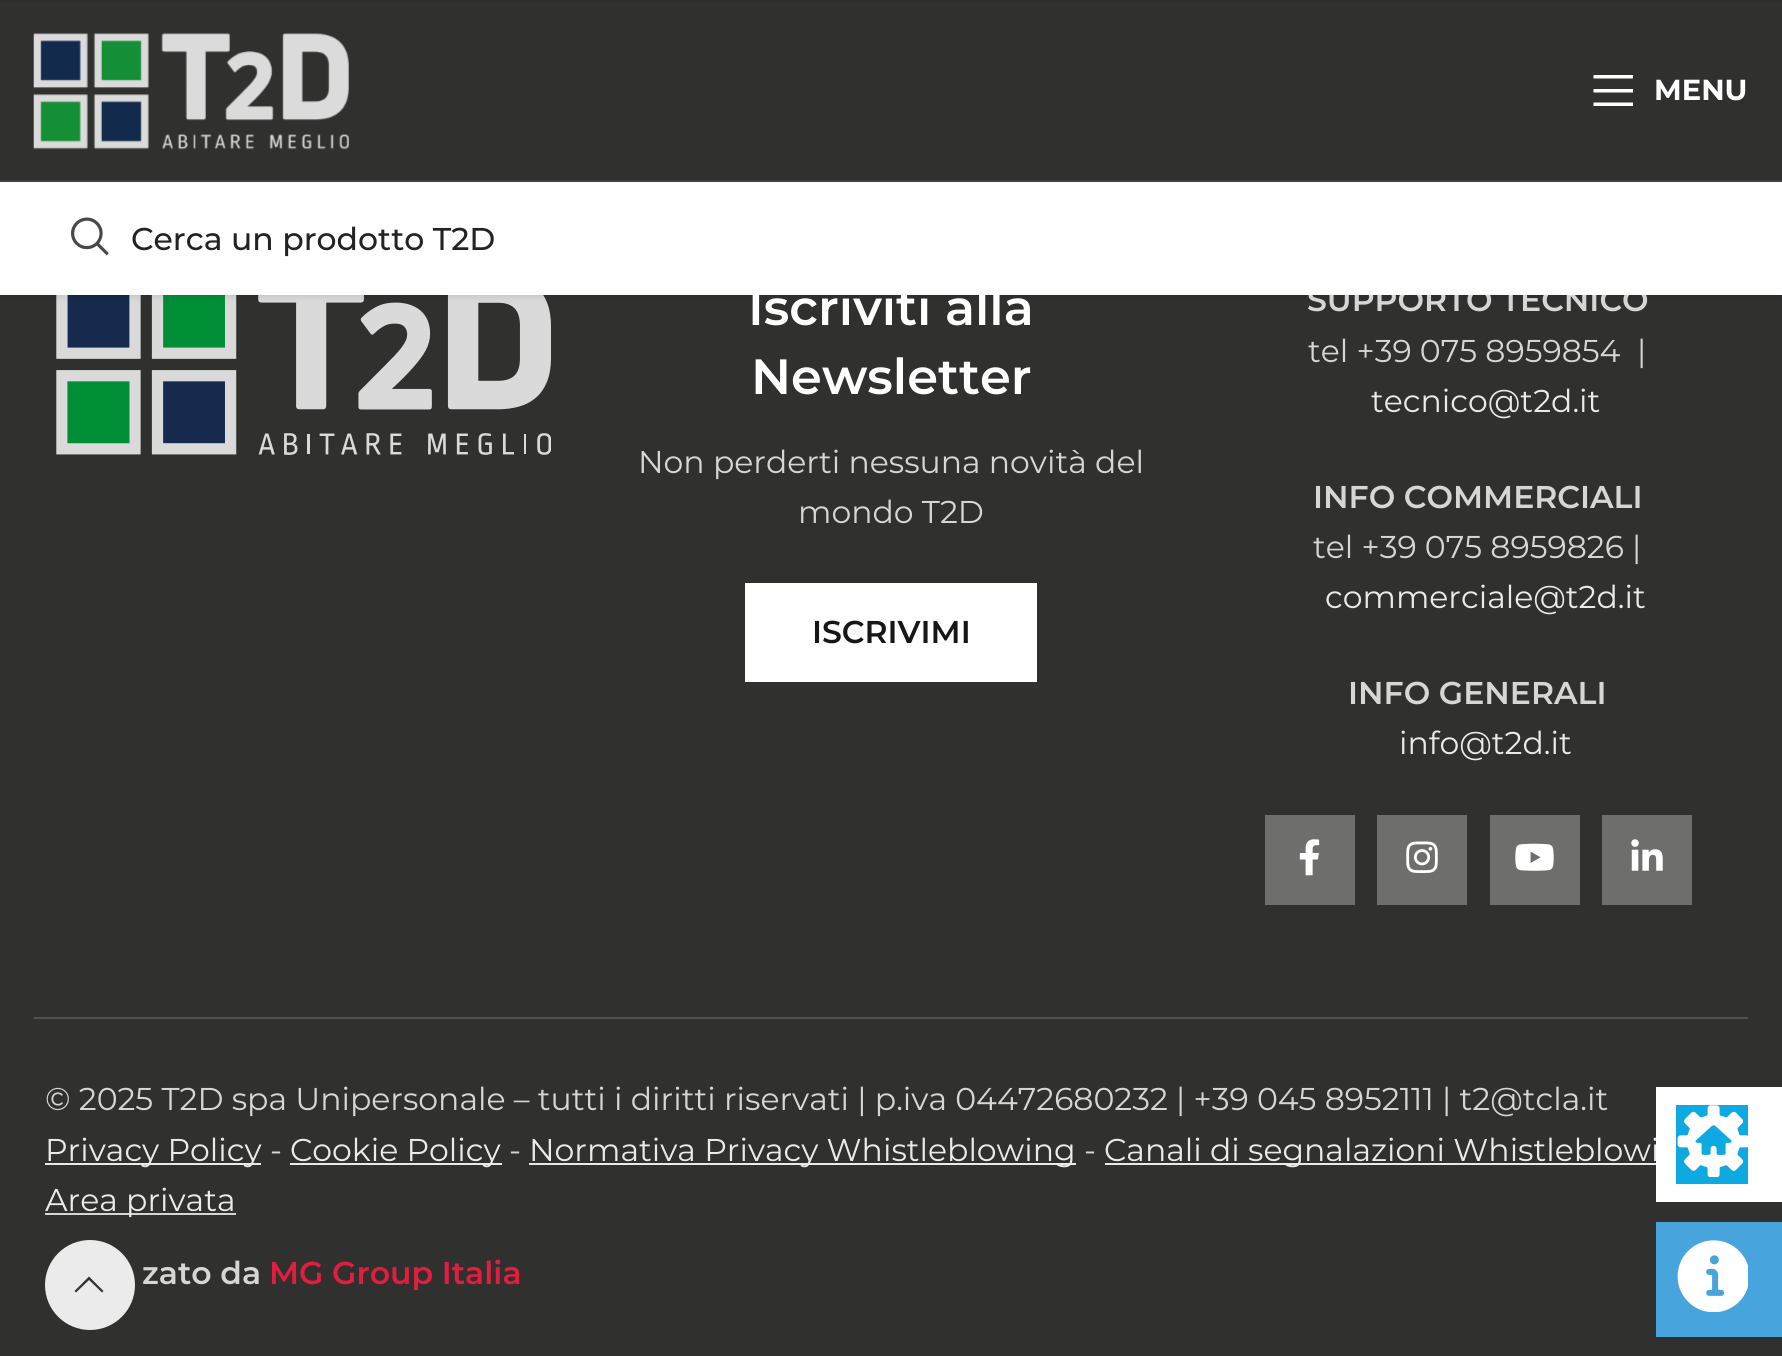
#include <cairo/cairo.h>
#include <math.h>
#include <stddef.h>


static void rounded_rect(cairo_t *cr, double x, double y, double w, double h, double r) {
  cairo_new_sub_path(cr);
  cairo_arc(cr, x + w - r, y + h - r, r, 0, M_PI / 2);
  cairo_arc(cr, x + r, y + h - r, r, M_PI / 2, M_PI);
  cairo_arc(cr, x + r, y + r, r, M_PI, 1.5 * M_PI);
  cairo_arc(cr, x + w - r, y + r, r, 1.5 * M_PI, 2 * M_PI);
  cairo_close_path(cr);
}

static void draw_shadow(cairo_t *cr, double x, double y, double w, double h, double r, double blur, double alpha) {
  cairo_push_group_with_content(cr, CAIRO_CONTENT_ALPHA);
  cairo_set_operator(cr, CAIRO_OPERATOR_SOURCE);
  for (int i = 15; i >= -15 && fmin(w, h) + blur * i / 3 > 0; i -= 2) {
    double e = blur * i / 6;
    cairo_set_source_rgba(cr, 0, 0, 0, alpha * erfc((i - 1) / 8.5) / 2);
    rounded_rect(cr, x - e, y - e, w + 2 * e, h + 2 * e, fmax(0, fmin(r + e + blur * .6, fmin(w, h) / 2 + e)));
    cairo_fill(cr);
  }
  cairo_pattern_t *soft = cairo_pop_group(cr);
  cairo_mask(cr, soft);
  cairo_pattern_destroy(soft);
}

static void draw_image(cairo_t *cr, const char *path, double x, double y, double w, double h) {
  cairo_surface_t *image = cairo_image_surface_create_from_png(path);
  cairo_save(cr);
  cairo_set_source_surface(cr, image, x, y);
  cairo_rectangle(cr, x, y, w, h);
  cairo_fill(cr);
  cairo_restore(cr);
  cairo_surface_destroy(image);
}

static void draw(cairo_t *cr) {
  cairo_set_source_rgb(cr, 48 / 255.0, 48 / 255.0, 47 / 255.0);
  cairo_paint(cr);
  draw_image(cr, "images/3.png", 56, 295, 495, 160);
  cairo_set_source_rgb(cr, 0, 0, 0);
  draw_shadow(cr, 0, 2, 1782, 295, 0, 3.5, 0.1);
  cairo_set_source_rgb(cr, 48 / 255.0, 48 / 255.0, 47 / 255.0);
  cairo_rectangle(cr, 0, 2, 1782, 178);
  cairo_fill(cr);
  cairo_set_source_rgb(cr, 64 / 255.0, 64 / 255.0, 63 / 255.0);
  cairo_rectangle(cr, 0, 180, 1782, 2);
  cairo_fill(cr);
  draw_image(cr, "images/1.png", 33, 33, 316, 117);
  cairo_set_source_rgb(cr, 1, 1, 1);
  cairo_new_path(cr);
  cairo_move_to(cr, 1593.5, 78.5);
  cairo_line_to(cr, 1633, 78.5);
  cairo_line_to(cr, 1633, 75);
  cairo_line_to(cr, 1593.5, 75);
  cairo_close_path(cr);
  cairo_move_to(cr, 1593.5, 92.5);
  cairo_line_to(cr, 1633, 92.5);
  cairo_line_to(cr, 1633, 89);
  cairo_line_to(cr, 1593.5, 89);
  cairo_close_path(cr);
  cairo_move_to(cr, 1593.5, 106);
  cairo_line_to(cr, 1633, 106);
  cairo_line_to(cr, 1633, 102.5);
  cairo_line_to(cr, 1593.5, 102.5);
  cairo_close_path(cr);
  cairo_fill(cr);
  cairo_rectangle(cr, 745, 583, 292, 99);
  cairo_fill(cr);
  cairo_set_source_rgb(cr, 110 / 255.0, 110 / 255.0, 109 / 255.0);
  cairo_rectangle(cr, 1265, 815, 90, 90);
  cairo_fill(cr);
  draw_image(cr, "images/4.png", 1299, 839, 21, 37);
  cairo_rectangle(cr, 1377, 815, 90, 90);
  cairo_fill(cr);
  draw_image(cr, "images/5.png", 1406, 841, 32, 32);
  cairo_rectangle(cr, 1490, 815, 90, 90);
  cairo_fill(cr);
  draw_image(cr, "images/6.png", 1515, 843, 39, 28);
  cairo_rectangle(cr, 1602, 815, 90, 90);
  cairo_fill(cr);
  draw_image(cr, "images/7.png", 1631, 839, 32, 32);
  cairo_set_source_rgb(cr, 81 / 255.0, 81 / 255.0, 80 / 255.0);
  cairo_rectangle(cr, 34, 1017, 1714, 2);
  cairo_fill(cr);
  cairo_set_source_rgb(cr, 234 / 255.0, 234 / 255.0, 234 / 255.0);
  cairo_rectangle(cr, 45, 1163, 216, 2);
  cairo_fill(cr);
  cairo_rectangle(cr, 290, 1163, 212, 2);
  cairo_fill(cr);
  cairo_rectangle(cr, 529, 1163, 547, 2);
  cairo_fill(cr);
  cairo_rectangle(cr, 1105, 1163, 551, 2);
  cairo_fill(cr);
  cairo_set_source_rgb(cr, 214 / 255.0, 214 / 255.0, 213 / 255.0);
  cairo_rectangle(cr, 45, 1213, 191, 2);
  cairo_fill(cr);
  cairo_set_source_rgb(cr, 72 / 255.0, 164 / 255.0, 220 / 255.0);
  cairo_rectangle(cr, 1656, 1222, 126, 115);
  cairo_fill(cr);
  draw_image(cr, "images/9.png", 1677, 1240, 71, 72);
  cairo_set_source_rgba(cr, 1, 1, 1, 0.9);
  cairo_arc(cr, 90, 1285, 45, 0, 2 * M_PI);
  cairo_fill(cr);
  cairo_set_source_rgb(cr, 51 / 255.0, 51 / 255.0, 51 / 255.0);
  cairo_new_path(cr);
  cairo_move_to(cr, 102, 1292.5);
  cairo_line_to(cr, 103.5, 1291);
  cairo_line_to(cr, 89, 1276.5);
  cairo_line_to(cr, 74.5, 1291);
  cairo_line_to(cr, 76, 1292.5);
  cairo_line_to(cr, 89, 1280);
  cairo_close_path(cr);
  cairo_fill(cr);
  cairo_select_font_face(cr, "Montserrat", CAIRO_FONT_SLANT_NORMAL, CAIRO_FONT_WEIGHT_BOLD);
  cairo_set_font_size(cr, 29);
  cairo_set_source_rgb(cr, 1, 1, 1);
  cairo_move_to(cr, 1654, 100);
  cairo_show_text(cr, "MENU");
  cairo_select_font_face(cr, "Montserrat SemiBold", CAIRO_FONT_SLANT_NORMAL, CAIRO_FONT_WEIGHT_NORMAL);
  cairo_set_font_size(cr, 49.5);
  cairo_move_to(cr, 748, 325);
  cairo_show_text(cr, "Iscriviti alla");
  cairo_move_to(cr, 751, 394);
  cairo_show_text(cr, "Newsletter");
  cairo_select_font_face(cr, "Montserrat", CAIRO_FONT_SLANT_NORMAL, CAIRO_FONT_WEIGHT_NORMAL);
  cairo_set_font_size(cr, 31.5);
  cairo_set_source_rgb(cr, 214 / 255.0, 214 / 255.0, 213 / 255.0);
  cairo_move_to(cr, 638, 473);
  cairo_show_text(cr, "Non perderti nessuna novità del");
  cairo_move_to(cr, 798, 523);
  cairo_show_text(cr, "mondo T2D");
  cairo_select_font_face(cr, "Montserrat SemiBold", CAIRO_FONT_SLANT_NORMAL, CAIRO_FONT_WEIGHT_NORMAL);
  cairo_set_source_rgb(cr, 22 / 255.0, 22 / 255.0, 22 / 255.0);
  cairo_move_to(cr, 812, 643);
  cairo_show_text(cr, "ISCRIVIMI");
  cairo_set_source_rgb(cr, 214 / 255.0, 214 / 255.0, 213 / 255.0);
  cairo_move_to(cr, 1307, 311);
  cairo_show_text(cr, "SUPPORTO TECNICO");
  cairo_set_source_rgb(cr, 1, 1, 1);
  cairo_rectangle(cr, 0, 182, 1782, 113);
  cairo_fill(cr);
  draw_image(cr, "images/2.png", 71, 217, 38, 39);
  cairo_select_font_face(cr, "Montserrat Medium", CAIRO_FONT_SLANT_NORMAL, CAIRO_FONT_WEIGHT_NORMAL);
  cairo_set_source_rgb(cr, 35 / 255.0, 35 / 255.0, 35 / 255.0);
  cairo_move_to(cr, 131, 250);
  cairo_show_text(cr, "Cerca un prodotto T2D");
  cairo_select_font_face(cr, "Montserrat", CAIRO_FONT_SLANT_NORMAL, CAIRO_FONT_WEIGHT_NORMAL);
  cairo_set_source_rgb(cr, 214 / 255.0, 214 / 255.0, 213 / 255.0);
  cairo_move_to(cr, 1308, 362);
  cairo_show_text(cr, "tel +39 075 8959854  |");
  cairo_set_source_rgb(cr, 234 / 255.0, 234 / 255.0, 234 / 255.0);
  cairo_move_to(cr, 1371, 412);
  cairo_show_text(cr, "tecnico@t2d.it");
  cairo_select_font_face(cr, "Montserrat SemiBold", CAIRO_FONT_SLANT_NORMAL, CAIRO_FONT_WEIGHT_NORMAL);
  cairo_set_source_rgb(cr, 214 / 255.0, 214 / 255.0, 213 / 255.0);
  cairo_move_to(cr, 1313, 508);
  cairo_show_text(cr, "INFO COMMERCIALI");
  cairo_select_font_face(cr, "Montserrat", CAIRO_FONT_SLANT_NORMAL, CAIRO_FONT_WEIGHT_NORMAL);
  cairo_move_to(cr, 1313, 558);
  cairo_show_text(cr, "tel +39 075 8959826 |");
  cairo_set_source_rgb(cr, 234 / 255.0, 234 / 255.0, 234 / 255.0);
  cairo_move_to(cr, 1325, 608);
  cairo_show_text(cr, "commerciale@t2d.it");
  cairo_select_font_face(cr, "Montserrat SemiBold", CAIRO_FONT_SLANT_NORMAL, CAIRO_FONT_WEIGHT_NORMAL);
  cairo_set_source_rgb(cr, 214 / 255.0, 214 / 255.0, 213 / 255.0);
  cairo_move_to(cr, 1348, 704);
  cairo_show_text(cr, "INFO GENERALI");
  cairo_select_font_face(cr, "Montserrat", CAIRO_FONT_SLANT_NORMAL, CAIRO_FONT_WEIGHT_NORMAL);
  cairo_set_source_rgb(cr, 234 / 255.0, 234 / 255.0, 234 / 255.0);
  cairo_move_to(cr, 1399, 754);
  cairo_show_text(cr, "info@t2d.it");
  cairo_set_source_rgb(cr, 214 / 255.0, 214 / 255.0, 213 / 255.0);
  cairo_move_to(cr, 45, 1110);
  cairo_show_text(cr, "© 2025 T2D spa Unipersonale – tutti i diritti riservati | p.iva 04472680232 | +39 045 8952111 | t2@tcla.it");
  cairo_set_source_rgb(cr, 234 / 255.0, 234 / 255.0, 234 / 255.0);
  cairo_move_to(cr, 45, 1161);
  cairo_show_text(cr, "Privacy Policy");
  cairo_set_source_rgb(cr, 214 / 255.0, 214 / 255.0, 213 / 255.0);
  cairo_move_to(cr, 270, 1161);
  cairo_show_text(cr, "-");
  cairo_set_source_rgb(cr, 234 / 255.0, 234 / 255.0, 234 / 255.0);
  cairo_move_to(cr, 290, 1161);
  cairo_show_text(cr, "Cookie Policy");
  cairo_set_source_rgb(cr, 214 / 255.0, 214 / 255.0, 213 / 255.0);
  cairo_move_to(cr, 509, 1161);
  cairo_show_text(cr, "-");
  cairo_set_source_rgb(cr, 234 / 255.0, 234 / 255.0, 234 / 255.0);
  cairo_move_to(cr, 529, 1161);
  cairo_show_text(cr, "Normativa Privacy Whistleblowing");
  cairo_set_source_rgb(cr, 214 / 255.0, 214 / 255.0, 213 / 255.0);
  cairo_move_to(cr, 1084, 1161);
  cairo_show_text(cr, "-");
  cairo_set_source_rgb(cr, 234 / 255.0, 234 / 255.0, 234 / 255.0);
  cairo_move_to(cr, 1104, 1161);
  cairo_show_text(cr, "Canali di segnalazioni Whistleblowi");
  cairo_move_to(cr, 45, 1211);
  cairo_show_text(cr, "Area privata");
  cairo_select_font_face(cr, "Montserrat SemiBold", CAIRO_FONT_SLANT_NORMAL, CAIRO_FONT_WEIGHT_NORMAL);
  cairo_set_source_rgb(cr, 214 / 255.0, 214 / 255.0, 213 / 255.0);
  cairo_move_to(cr, 142, 1284);
  cairo_show_text(cr, "zato da");
  cairo_set_source_rgb(cr, 226 / 255.0, 29 / 255.0, 63 / 255.0);
  cairo_move_to(cr, 269, 1284);
  cairo_show_text(cr, "MG Group Italia");
  cairo_set_source_rgb(cr, 1, 1, 1);
  cairo_rectangle(cr, 1656, 1087, 126, 115);
  cairo_fill(cr);
  cairo_set_source_rgb(cr, 15 / 255.0, 169 / 255.0, 226 / 255.0);
  cairo_rectangle(cr, 1676, 1105, 72, 79);
  cairo_fill(cr);
  draw_image(cr, "images/8.png", 1677, 1105, 71, 72);
}

int main(void) {
  cairo_surface_t *surface = cairo_image_surface_create(CAIRO_FORMAT_RGB24, 1782, 1356);
  cairo_t *cr = cairo_create(surface);
  cairo_font_options_t *options = cairo_font_options_create();
  cairo_font_options_set_hint_metrics(options, CAIRO_HINT_METRICS_OFF);
  cairo_font_options_set_hint_style(options, CAIRO_HINT_STYLE_NONE);
  cairo_set_font_options(cr, options);
  cairo_set_miter_limit(cr, 4);
  draw(cr);
  cairo_surface_write_to_png(surface, "out.png");
  cairo_font_options_destroy(options);
  cairo_destroy(cr);
  cairo_surface_destroy(surface);
  return 0;
}
